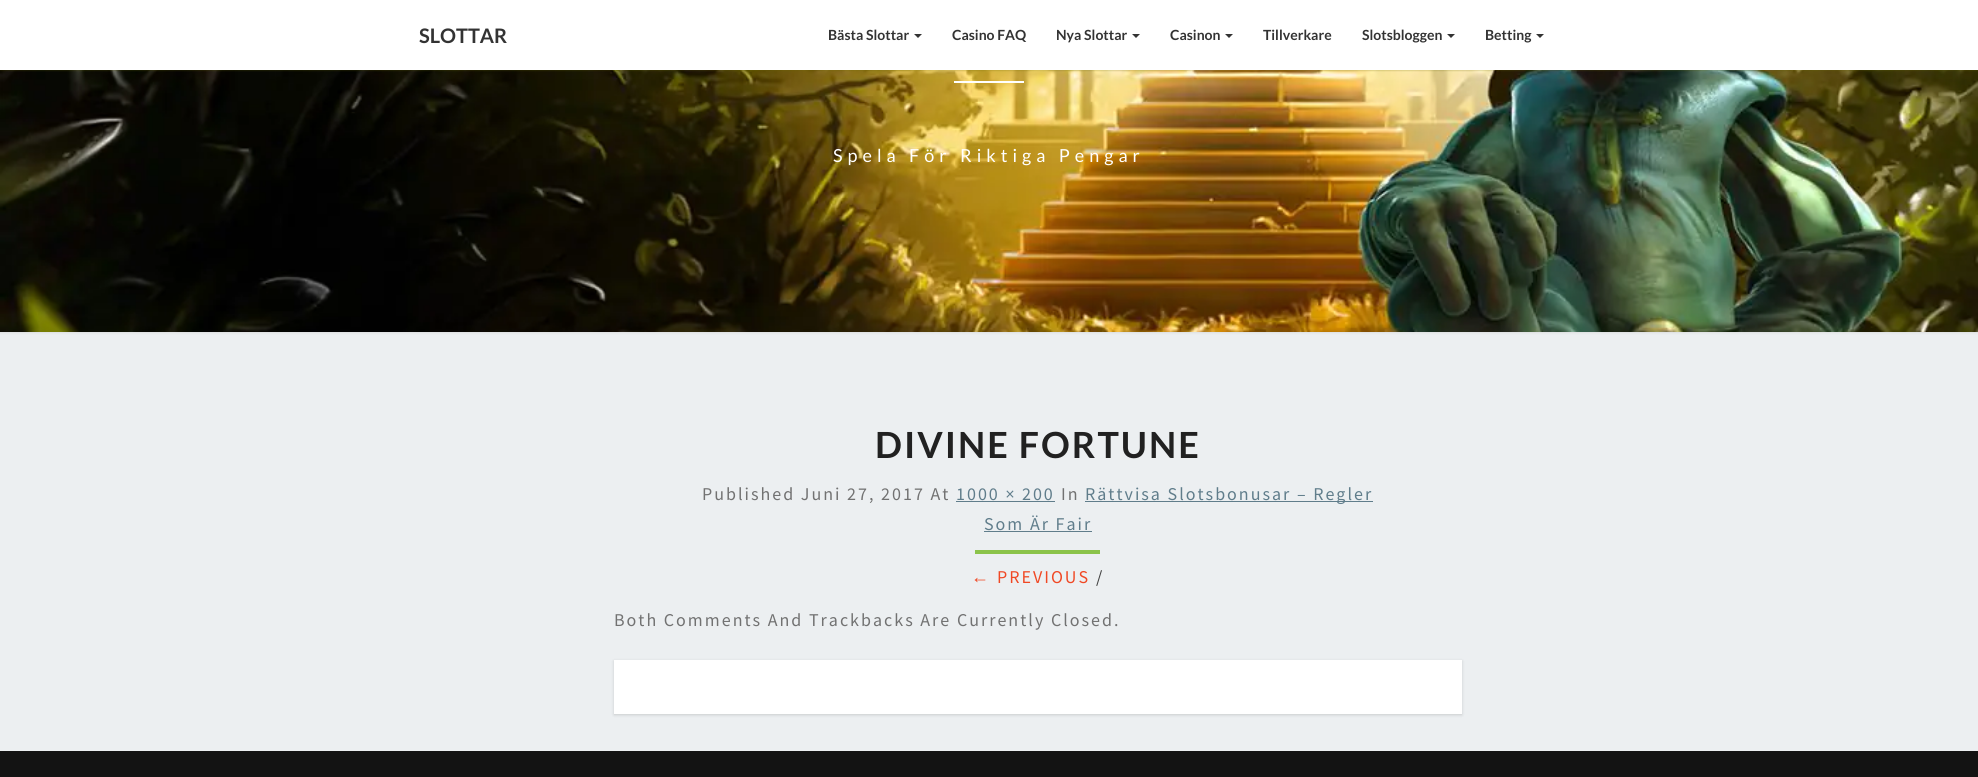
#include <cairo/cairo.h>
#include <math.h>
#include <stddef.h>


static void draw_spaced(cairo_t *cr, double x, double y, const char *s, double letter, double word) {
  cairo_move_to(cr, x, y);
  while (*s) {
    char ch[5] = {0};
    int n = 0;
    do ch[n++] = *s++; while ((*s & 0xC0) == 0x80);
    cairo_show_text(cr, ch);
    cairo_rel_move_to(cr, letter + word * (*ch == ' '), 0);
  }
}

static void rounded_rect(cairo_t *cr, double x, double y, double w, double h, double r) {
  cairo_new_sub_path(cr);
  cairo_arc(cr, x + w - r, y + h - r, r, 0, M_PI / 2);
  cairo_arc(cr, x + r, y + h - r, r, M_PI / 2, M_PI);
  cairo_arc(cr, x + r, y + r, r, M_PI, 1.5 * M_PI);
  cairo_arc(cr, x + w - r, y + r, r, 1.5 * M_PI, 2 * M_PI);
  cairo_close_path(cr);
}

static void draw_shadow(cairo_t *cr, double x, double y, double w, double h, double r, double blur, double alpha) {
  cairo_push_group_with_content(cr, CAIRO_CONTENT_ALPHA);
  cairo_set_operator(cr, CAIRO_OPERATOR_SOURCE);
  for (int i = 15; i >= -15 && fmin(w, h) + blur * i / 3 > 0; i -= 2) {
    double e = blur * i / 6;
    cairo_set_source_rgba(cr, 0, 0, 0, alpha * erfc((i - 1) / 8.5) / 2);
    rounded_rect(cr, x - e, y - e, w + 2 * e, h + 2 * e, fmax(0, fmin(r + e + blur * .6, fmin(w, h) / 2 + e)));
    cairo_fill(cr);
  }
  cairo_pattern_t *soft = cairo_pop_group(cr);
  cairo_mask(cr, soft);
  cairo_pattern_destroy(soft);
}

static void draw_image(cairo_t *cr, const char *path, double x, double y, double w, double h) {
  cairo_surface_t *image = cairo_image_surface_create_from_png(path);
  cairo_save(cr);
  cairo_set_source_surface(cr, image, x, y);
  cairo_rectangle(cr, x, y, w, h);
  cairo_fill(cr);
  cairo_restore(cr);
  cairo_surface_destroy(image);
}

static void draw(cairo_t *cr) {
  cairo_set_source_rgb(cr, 236 / 255.0, 239 / 255.0, 241 / 255.0);
  cairo_paint(cr);
  cairo_set_source_rgb(cr, 182 / 255.0, 182 / 255.0, 182 / 255.0);
  draw_shadow(cr, -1, -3, 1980, 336, 0, 1, 0.3);
  draw_image(cr, "images/1.png", 0, 70, 1978, 262);
  cairo_set_source_rgb(cr, 100 / 255.0, 100 / 255.0, 0);
  draw_shadow(cr, 0, 1, 1978, 70, 0, 0.5, 0.2);
  cairo_set_source_rgb(cr, 1, 1, 1);
  cairo_rectangle(cr, 0, 0, 1978, 70);
  cairo_fill(cr);
  cairo_set_source_rgb(cr, 51 / 255.0, 51 / 255.0, 51 / 255.0);
  cairo_new_path(cr);
  cairo_move_to(cr, 914, 34);
  cairo_line_to(cr, 922, 34);
  cairo_line_to(cr, 918, 38);
  cairo_close_path(cr);
  cairo_fill(cr);
  cairo_new_path(cr);
  cairo_move_to(cr, 1132, 34);
  cairo_line_to(cr, 1140, 34);
  cairo_line_to(cr, 1136, 38);
  cairo_close_path(cr);
  cairo_fill(cr);
  cairo_new_path(cr);
  cairo_move_to(cr, 1225, 34);
  cairo_line_to(cr, 1233, 34);
  cairo_line_to(cr, 1229, 38);
  cairo_close_path(cr);
  cairo_fill(cr);
  cairo_new_path(cr);
  cairo_move_to(cr, 1447, 34);
  cairo_line_to(cr, 1455, 34);
  cairo_line_to(cr, 1451, 38);
  cairo_close_path(cr);
  cairo_fill(cr);
  cairo_new_path(cr);
  cairo_move_to(cr, 1536, 34);
  cairo_line_to(cr, 1544, 34);
  cairo_line_to(cr, 1540, 38);
  cairo_close_path(cr);
  cairo_fill(cr);
  cairo_set_source_rgb(cr, 1, 1, 1);
  cairo_rectangle(cr, 954, 81, 70, 2);
  cairo_fill(cr);
  cairo_set_source_rgb(cr, 96 / 255.0, 125 / 255.0, 139 / 255.0);
  cairo_rectangle(cr, 956, 501, 99, 1);
  cairo_fill(cr);
  cairo_rectangle(cr, 1085, 501, 288, 1);
  cairo_fill(cr);
  cairo_rectangle(cr, 984, 531, 108, 1);
  cairo_fill(cr);
  cairo_set_source_rgb(cr, 139 / 255.0, 195 / 255.0, 74 / 255.0);
  cairo_rectangle(cr, 975, 550, 125, 4);
  cairo_fill(cr);
  cairo_set_source_rgb(cr, 0, 0, 0);
  draw_shadow(cr, 614, 661, 848, 54, 0, 1.5, 0.15);
  cairo_set_source_rgb(cr, 1, 1, 1);
  cairo_rectangle(cr, 614, 660, 848, 54);
  cairo_fill(cr);
  cairo_set_source_rgb(cr, 19 / 255.0, 19 / 255.0, 19 / 255.0);
  cairo_rectangle(cr, 0, 751, 1978, 26);
  cairo_fill(cr);
  cairo_select_font_face(cr, "Lato", CAIRO_FONT_SLANT_NORMAL, CAIRO_FONT_WEIGHT_BOLD);
  cairo_set_font_size(cr, 20);
  cairo_set_source_rgb(cr, 51 / 255.0, 51 / 255.0, 51 / 255.0);
  cairo_move_to(cr, 419, 43);
  cairo_show_text(cr, "SLOTTAR");
  cairo_set_font_size(cr, 14);
  cairo_move_to(cr, 828, 40);
  cairo_show_text(cr, "Bästa Slottar");
  cairo_move_to(cr, 952, 40);
  cairo_show_text(cr, "Casino FAQ");
  cairo_move_to(cr, 1056, 40);
  cairo_show_text(cr, "Nya Slottar");
  cairo_move_to(cr, 1170, 40);
  cairo_show_text(cr, "Casinon");
  cairo_move_to(cr, 1263, 40);
  cairo_show_text(cr, "Tillverkare");
  cairo_move_to(cr, 1362, 40);
  cairo_show_text(cr, "Slotsbloggen");
  cairo_move_to(cr, 1485, 40);
  cairo_show_text(cr, "Betting");
  cairo_select_font_face(cr, "Lato", CAIRO_FONT_SLANT_NORMAL, CAIRO_FONT_WEIGHT_NORMAL);
  cairo_set_font_size(cr, 18);
  cairo_set_source_rgb(cr, 1, 1, 1);
  draw_spaced(cr, 833, 162, "Spela För Riktiga Pengar", 5, 0);
  cairo_select_font_face(cr, "Lato", CAIRO_FONT_SLANT_NORMAL, CAIRO_FONT_WEIGHT_BOLD);
  cairo_set_font_size(cr, 36);
  cairo_set_source_rgb(cr, 33 / 255.0, 33 / 255.0, 33 / 255.0);
  draw_spaced(cr, 875, 458, "DIVINE FORTUNE", 2, 0);
  cairo_select_font_face(cr, "Source Sans Pro", CAIRO_FONT_SLANT_NORMAL, CAIRO_FONT_WEIGHT_NORMAL);
  cairo_set_font_size(cr, 18);
  cairo_set_source_rgb(cr, 114 / 255.0, 114 / 255.0, 114 / 255.0);
  draw_spaced(cr, 702, 500, "Published Juni 27, 2017 At", 2, 0);
  cairo_set_source_rgb(cr, 96 / 255.0, 125 / 255.0, 139 / 255.0);
  draw_spaced(cr, 956, 500, "1000 × 200", 2, 0);
  cairo_set_source_rgb(cr, 114 / 255.0, 114 / 255.0, 114 / 255.0);
  draw_spaced(cr, 1061, 500, "In", 2, 0);
  cairo_set_source_rgb(cr, 96 / 255.0, 125 / 255.0, 139 / 255.0);
  draw_spaced(cr, 1085, 500, "Rättvisa Slotsbonusar – Regler", 2, 0);
  draw_spaced(cr, 984, 530, "Som Är Fair", 2, 0);
  cairo_select_font_face(cr, "Liberation Sans", CAIRO_FONT_SLANT_NORMAL, CAIRO_FONT_WEIGHT_NORMAL);
  cairo_set_source_rgb(cr, 240 / 255.0, 72 / 255.0, 36 / 255.0);
  draw_spaced(cr, 971, 583, "←", 2, 0);
  cairo_select_font_face(cr, "Source Sans Pro", CAIRO_FONT_SLANT_NORMAL, CAIRO_FONT_WEIGHT_NORMAL);
  draw_spaced(cr, 997, 583, "PREVIOUS", 2, 0);
  cairo_set_source_rgb(cr, 66 / 255.0, 66 / 255.0, 66 / 255.0);
  draw_spaced(cr, 1096, 583, "/", 2, 0);
  cairo_set_source_rgb(cr, 114 / 255.0, 114 / 255.0, 114 / 255.0);
  draw_spaced(cr, 614, 626, "Both Comments And Trackbacks Are Currently Closed.", 2, 0);
}

int main(void) {
  cairo_surface_t *surface = cairo_image_surface_create(CAIRO_FORMAT_RGB24, 1978, 777);
  cairo_t *cr = cairo_create(surface);
  cairo_font_options_t *options = cairo_font_options_create();
  cairo_font_options_set_hint_metrics(options, CAIRO_HINT_METRICS_OFF);
  cairo_font_options_set_hint_style(options, CAIRO_HINT_STYLE_NONE);
  cairo_set_font_options(cr, options);
  cairo_set_miter_limit(cr, 4);
  draw(cr);
  cairo_surface_write_to_png(surface, "out.png");
  cairo_font_options_destroy(options);
  cairo_destroy(cr);
  cairo_surface_destroy(surface);
  return 0;
}
